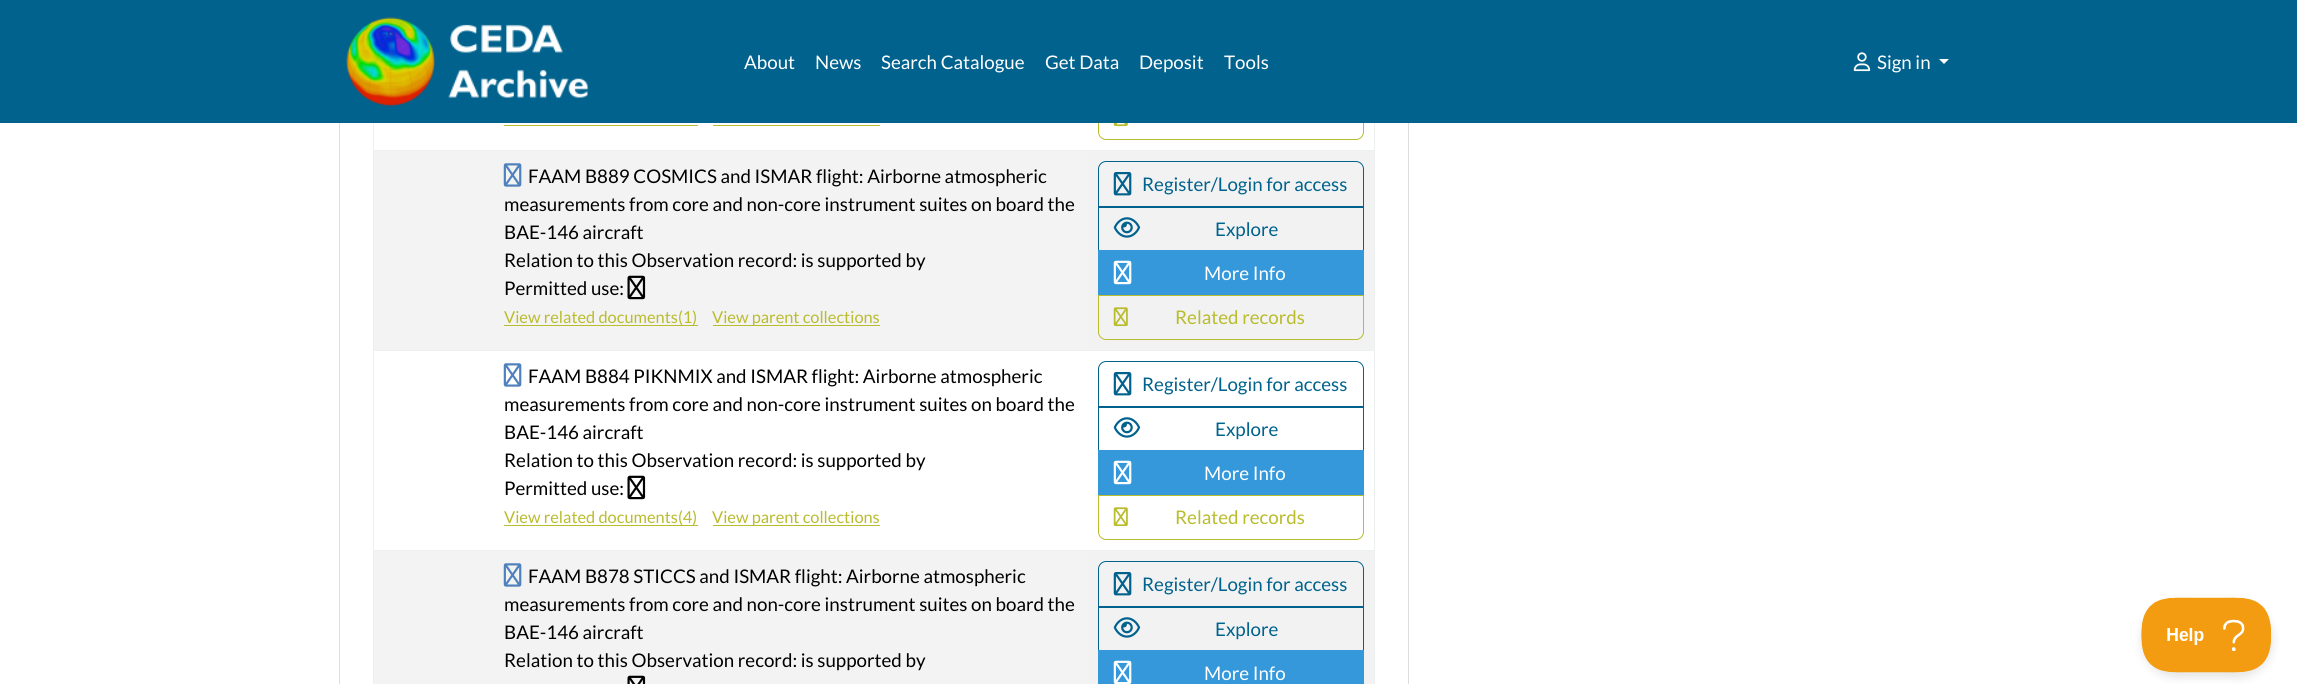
#include <cairo/cairo.h>
#include <math.h>
#include <stddef.h>


static void rounded_rect(cairo_t *cr, double x, double y, double w, double h, double r) {
  cairo_new_sub_path(cr);
  cairo_arc(cr, x + w - r, y + h - r, r, 0, M_PI / 2);
  cairo_arc(cr, x + r, y + h - r, r, M_PI / 2, M_PI);
  cairo_arc(cr, x + r, y + r, r, M_PI, 1.5 * M_PI);
  cairo_arc(cr, x + w - r, y + r, r, 1.5 * M_PI, 2 * M_PI);
  cairo_close_path(cr);
}

static void draw_shadow(cairo_t *cr, double x, double y, double w, double h, double r, double blur, double alpha) {
  cairo_push_group_with_content(cr, CAIRO_CONTENT_ALPHA);
  cairo_set_operator(cr, CAIRO_OPERATOR_SOURCE);
  for (int i = 15; i >= -15 && fmin(w, h) + blur * i / 3 > 0; i -= 2) {
    double e = blur * i / 6;
    cairo_set_source_rgba(cr, 0, 0, 0, alpha * erfc((i - 1) / 8.5) / 2);
    rounded_rect(cr, x - e, y - e, w + 2 * e, h + 2 * e, fmax(0, fmin(r + e + blur * .6, fmin(w, h) / 2 + e)));
    cairo_fill(cr);
  }
  cairo_pattern_t *soft = cairo_pop_group(cr);
  cairo_mask(cr, soft);
  cairo_pattern_destroy(soft);
}

static void draw_image(cairo_t *cr, const char *path, double x, double y, double w, double h) {
  cairo_surface_t *image = cairo_image_surface_create_from_png(path);
  cairo_save(cr);
  cairo_set_source_surface(cr, image, x, y);
  cairo_rectangle(cr, x, y, w, h);
  cairo_fill(cr);
  cairo_restore(cr);
  cairo_surface_destroy(image);
}

static void draw(cairo_t *cr) {
  cairo_set_source_rgb(cr, 1, 1, 1);
  cairo_paint(cr);
  cairo_set_source_rgb(cr, 221 / 255.0, 221 / 255.0, 221 / 255.0);
  cairo_set_fill_rule(cr, CAIRO_FILL_RULE_EVEN_ODD);
  cairo_new_path(cr);
  cairo_move_to(cr, 339, -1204);
  cairo_line_to(cr, 1409, -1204);
  cairo_line_to(cr, 1409, 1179);
  cairo_curve_to(cr, 1409, 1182, 1406, 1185, 1402, 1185);
  cairo_line_to(cr, 345, 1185);
  cairo_curve_to(cr, 342, 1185, 339, 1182, 339, 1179);
  cairo_close_path(cr);
  cairo_move_to(cr, 340, -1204);
  cairo_line_to(cr, 1408, -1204);
  cairo_line_to(cr, 1408, 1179);
  cairo_curve_to(cr, 1408, 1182, 1405, 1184, 1402, 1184);
  cairo_line_to(cr, 345, 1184);
  cairo_curve_to(cr, 342, 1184, 340, 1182, 340, 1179);
  cairo_close_path(cr);
  cairo_fill(cr);
  cairo_new_path(cr);
  cairo_move_to(cr, 1098.5, 95.5);
  cairo_line_to(cr, 1363.5, 95.5);
  cairo_line_to(cr, 1363.5, 132);
  cairo_curve_to(cr, 1363.5, 136, 1360, 139.5, 1356, 139.5);
  cairo_line_to(cr, 1106, 139.5);
  cairo_curve_to(cr, 1102, 139.5, 1098.5, 136, 1098.5, 132);
  cairo_close_path(cr);
  cairo_set_source_rgb(cr, 185 / 255.0, 188 / 255.0, 45 / 255.0);
  cairo_set_line_width(cr, 1);
  cairo_stroke(cr);
  cairo_set_source_rgb(cr, 0, 98 / 255.0, 141 / 255.0);
  cairo_rectangle(cr, 0, 0, 2297, 123);
  cairo_fill(cr);
  draw_image(cr, "images/1.png", 346, 17, 243, 90);
  draw_image(cr, "images/2.png", 1853, 52, 18, 20);
  cairo_set_source_rgb(cr, 1, 1, 1);
  cairo_set_fill_rule(cr, CAIRO_FILL_RULE_WINDING);
  cairo_new_path(cr);
  cairo_move_to(cr, 1939, 59);
  cairo_line_to(cr, 1949, 59);
  cairo_line_to(cr, 1944, 64);
  cairo_close_path(cr);
  cairo_fill(cr);
  cairo_set_source_rgb(cr, 236 / 255.0, 240 / 255.0, 241 / 255.0);
  cairo_rectangle(cr, 1374, 123, 1, 561);
  cairo_fill(cr);
  cairo_rectangle(cr, 373, 123, 1, 561);
  cairo_fill(cr);
  cairo_rectangle(cr, 373, 150, 1002, 1);
  cairo_fill(cr);
  draw_image(cr, "images/3.png", 1113, 123, 15, 4);
  cairo_set_source_rgb(cr, 185 / 255.0, 188 / 255.0, 45 / 255.0);
  cairo_rectangle(cr, 504, 125, 194, 1);
  cairo_fill(cr);
  cairo_rectangle(cr, 713, 125, 167, 1);
  cairo_fill(cr);
  cairo_set_source_rgb(cr, 243 / 255.0, 243 / 255.0, 243 / 255.0);
  cairo_rectangle(cr, 374, 151, 714, 199);
  cairo_fill(cr);
  draw_image(cr, "images/4.png", 503, 163, 19, 24);
  draw_image(cr, "images/5.png", 627, 275, 19, 25);
  cairo_set_source_rgb(cr, 185 / 255.0, 188 / 255.0, 45 / 255.0);
  cairo_rectangle(cr, 504, 325, 194, 1);
  cairo_fill(cr);
  cairo_rectangle(cr, 713, 325, 167, 1);
  cairo_fill(cr);
  cairo_set_source_rgb(cr, 242 / 255.0, 242 / 255.0, 242 / 255.0);
  cairo_rectangle(cr, 1088, 151, 286, 199);
  cairo_fill(cr);
  cairo_set_source_rgb(cr, 236 / 255.0, 240 / 255.0, 241 / 255.0);
  cairo_rectangle(cr, 373, 350, 1002, 1);
  cairo_fill(cr);
  cairo_new_path(cr);
  cairo_move_to(cr, 1106, 161.5);
  cairo_line_to(cr, 1356, 161.5);
  cairo_curve_to(cr, 1360, 161.5, 1363.5, 165, 1363.5, 169);
  cairo_line_to(cr, 1363.5, 207.5);
  cairo_line_to(cr, 1098.5, 207.5);
  cairo_line_to(cr, 1098.5, 169);
  cairo_curve_to(cr, 1098.5, 165, 1102, 161.5, 1106, 161.5);
  cairo_close_path(cr);
  cairo_set_source_rgb(cr, 0, 98 / 255.0, 141 / 255.0);
  cairo_stroke(cr);
  draw_image(cr, "images/6.png", 1113, 172, 19, 24);
  cairo_rectangle(cr, 1098.5, 206.5, 265, 44);
  cairo_stroke(cr);
  draw_image(cr, "images/7.png", 1113, 217, 28, 21);
  cairo_set_source_rgb(cr, 52 / 255.0, 152 / 255.0, 219 / 255.0);
  cairo_rectangle(cr, 1098, 250, 266, 45);
  cairo_fill(cr);
  draw_image(cr, "images/8.png", 1113, 260, 19, 25);
  cairo_new_path(cr);
  cairo_move_to(cr, 1098.5, 295.5);
  cairo_line_to(cr, 1363.5, 295.5);
  cairo_line_to(cr, 1363.5, 332);
  cairo_curve_to(cr, 1363.5, 336, 1360, 339.5, 1356, 339.5);
  cairo_line_to(cr, 1106, 339.5);
  cairo_curve_to(cr, 1102, 339.5, 1098.5, 336, 1098.5, 332);
  cairo_close_path(cr);
  cairo_set_source_rgb(cr, 185 / 255.0, 188 / 255.0, 45 / 255.0);
  cairo_stroke(cr);
  draw_image(cr, "images/9.png", 1113, 307, 15, 20);
  draw_image(cr, "images/10.png", 503, 363, 19, 24);
  draw_image(cr, "images/11.png", 627, 475, 19, 25);
  cairo_rectangle(cr, 504, 525, 194, 1);
  cairo_fill(cr);
  cairo_rectangle(cr, 713, 525, 167, 1);
  cairo_fill(cr);
  cairo_set_source_rgb(cr, 236 / 255.0, 240 / 255.0, 241 / 255.0);
  cairo_rectangle(cr, 373, 550, 1002, 1);
  cairo_fill(cr);
  cairo_new_path(cr);
  cairo_move_to(cr, 1106, 361.5);
  cairo_line_to(cr, 1356, 361.5);
  cairo_curve_to(cr, 1360, 361.5, 1363.5, 365, 1363.5, 369);
  cairo_line_to(cr, 1363.5, 407.5);
  cairo_line_to(cr, 1098.5, 407.5);
  cairo_line_to(cr, 1098.5, 369);
  cairo_curve_to(cr, 1098.5, 365, 1102, 361.5, 1106, 361.5);
  cairo_close_path(cr);
  cairo_set_source_rgb(cr, 0, 98 / 255.0, 141 / 255.0);
  cairo_stroke(cr);
  draw_image(cr, "images/12.png", 1113, 372, 19, 24);
  cairo_rectangle(cr, 1098.5, 406.5, 265, 44);
  cairo_stroke(cr);
  draw_image(cr, "images/13.png", 1113, 417, 28, 21);
  cairo_set_source_rgb(cr, 52 / 255.0, 152 / 255.0, 219 / 255.0);
  cairo_rectangle(cr, 1098, 450, 266, 45);
  cairo_fill(cr);
  draw_image(cr, "images/8.png", 1113, 460, 19, 25);
  cairo_new_path(cr);
  cairo_move_to(cr, 1098.5, 495.5);
  cairo_line_to(cr, 1363.5, 495.5);
  cairo_line_to(cr, 1363.5, 532);
  cairo_curve_to(cr, 1363.5, 536, 1360, 539.5, 1356, 539.5);
  cairo_line_to(cr, 1106, 539.5);
  cairo_curve_to(cr, 1102, 539.5, 1098.5, 536, 1098.5, 532);
  cairo_close_path(cr);
  cairo_set_source_rgb(cr, 185 / 255.0, 188 / 255.0, 45 / 255.0);
  cairo_stroke(cr);
  draw_image(cr, "images/14.png", 1113, 507, 15, 20);
  cairo_set_source_rgb(cr, 243 / 255.0, 243 / 255.0, 243 / 255.0);
  cairo_rectangle(cr, 374, 551, 714, 133);
  cairo_fill(cr);
  draw_image(cr, "images/4.png", 503, 563, 19, 24);
  draw_image(cr, "images/15.png", 627, 675, 19, 9);
  cairo_set_source_rgb(cr, 242 / 255.0, 242 / 255.0, 242 / 255.0);
  cairo_rectangle(cr, 1088, 551, 286, 133);
  cairo_fill(cr);
  cairo_new_path(cr);
  cairo_move_to(cr, 1106, 561.5);
  cairo_line_to(cr, 1356, 561.5);
  cairo_curve_to(cr, 1360, 561.5, 1363.5, 565, 1363.5, 569);
  cairo_line_to(cr, 1363.5, 607.5);
  cairo_line_to(cr, 1098.5, 607.5);
  cairo_line_to(cr, 1098.5, 569);
  cairo_curve_to(cr, 1098.5, 565, 1102, 561.5, 1106, 561.5);
  cairo_close_path(cr);
  cairo_set_source_rgb(cr, 0, 98 / 255.0, 141 / 255.0);
  cairo_stroke(cr);
  draw_image(cr, "images/6.png", 1113, 572, 19, 24);
  cairo_rectangle(cr, 1098.5, 606.5, 265, 44);
  cairo_stroke(cr);
  draw_image(cr, "images/7.png", 1113, 617, 28, 21);
  cairo_set_source_rgb(cr, 52 / 255.0, 152 / 255.0, 219 / 255.0);
  cairo_rectangle(cr, 1098, 650, 266, 34);
  cairo_fill(cr);
  draw_image(cr, "images/16.png", 1113, 660, 19, 24);
  cairo_set_source_rgb(cr, 0, 0, 0);
  draw_shadow(cr, 2141, 603, 132, 75, 37.5, 4.5, 0.1);
  draw_image(cr, "images/17.png", 2141, 597, 131, 76);
  cairo_select_font_face(cr, "Lato", CAIRO_FONT_SLANT_NORMAL, CAIRO_FONT_WEIGHT_NORMAL);
  cairo_set_font_size(cr, 18.75);
  cairo_set_source_rgb(cr, 1, 1, 1);
  cairo_move_to(cr, 744, 69);
  cairo_show_text(cr, "About");
  cairo_move_to(cr, 815, 69);
  cairo_show_text(cr, "News");
  cairo_move_to(cr, 881, 69);
  cairo_show_text(cr, "Search Catalogue");
  cairo_move_to(cr, 1045, 69);
  cairo_show_text(cr, "Get Data");
  cairo_move_to(cr, 1139, 69);
  cairo_show_text(cr, "Deposit");
  cairo_move_to(cr, 1224, 69);
  cairo_show_text(cr, "Tools");
  cairo_move_to(cr, 1877, 69);
  cairo_show_text(cr, "Sign in");
  cairo_set_source_rgb(cr, 0, 0, 0);
  cairo_move_to(cr, 528, 183);
  cairo_show_text(cr, "FAAM B889 COSMICS and ISMAR flight: Airborne atmospheric");
  cairo_move_to(cr, 504, 211);
  cairo_show_text(cr, "measurements from core and non-core instrument suites on board the");
  cairo_move_to(cr, 504, 239);
  cairo_show_text(cr, "BAE-146 aircraft");
  cairo_move_to(cr, 504, 267);
  cairo_show_text(cr, "Relation to this Observation record: is supported by");
  cairo_move_to(cr, 504, 295);
  cairo_show_text(cr, "Permitted use:");
  cairo_set_font_size(cr, 16.4);
  cairo_set_source_rgb(cr, 185 / 255.0, 188 / 255.0, 45 / 255.0);
  cairo_move_to(cr, 504, 323);
  cairo_show_text(cr, "View related documents(1)");
  cairo_move_to(cr, 712, 323);
  cairo_show_text(cr, "View parent collections");
  cairo_set_font_size(cr, 18.75);
  cairo_set_source_rgb(cr, 0, 98 / 255.0, 141 / 255.0);
  cairo_move_to(cr, 1142, 191);
  cairo_show_text(cr, "Register/Login for access");
  cairo_move_to(cr, 1215, 236);
  cairo_show_text(cr, "Explore");
  cairo_set_source_rgb(cr, 1, 1, 1);
  cairo_move_to(cr, 1204, 280);
  cairo_show_text(cr, "More Info");
  cairo_set_source_rgb(cr, 185 / 255.0, 188 / 255.0, 45 / 255.0);
  cairo_move_to(cr, 1175, 324);
  cairo_show_text(cr, "Related records");
  cairo_set_source_rgb(cr, 0, 0, 0);
  cairo_move_to(cr, 528, 383);
  cairo_show_text(cr, "FAAM B884 PIKNMIX and ISMAR flight: Airborne atmospheric");
  cairo_move_to(cr, 504, 411);
  cairo_show_text(cr, "measurements from core and non-core instrument suites on board the");
  cairo_move_to(cr, 504, 439);
  cairo_show_text(cr, "BAE-146 aircraft");
  cairo_move_to(cr, 504, 467);
  cairo_show_text(cr, "Relation to this Observation record: is supported by");
  cairo_move_to(cr, 504, 495);
  cairo_show_text(cr, "Permitted use:");
  cairo_set_font_size(cr, 16.4);
  cairo_set_source_rgb(cr, 185 / 255.0, 188 / 255.0, 45 / 255.0);
  cairo_move_to(cr, 504, 523);
  cairo_show_text(cr, "View related documents(4)");
  cairo_move_to(cr, 712, 523);
  cairo_show_text(cr, "View parent collections");
  cairo_set_font_size(cr, 18.75);
  cairo_set_source_rgb(cr, 0, 98 / 255.0, 141 / 255.0);
  cairo_move_to(cr, 1142, 391);
  cairo_show_text(cr, "Register/Login for access");
  cairo_move_to(cr, 1215, 436);
  cairo_show_text(cr, "Explore");
  cairo_set_source_rgb(cr, 1, 1, 1);
  cairo_move_to(cr, 1204, 480);
  cairo_show_text(cr, "More Info");
  cairo_set_source_rgb(cr, 185 / 255.0, 188 / 255.0, 45 / 255.0);
  cairo_move_to(cr, 1175, 524);
  cairo_show_text(cr, "Related records");
  cairo_set_source_rgb(cr, 0, 0, 0);
  cairo_move_to(cr, 528, 583);
  cairo_show_text(cr, "FAAM B878 STICCS and ISMAR flight: Airborne atmospheric");
  cairo_move_to(cr, 504, 611);
  cairo_show_text(cr, "measurements from core and non-core instrument suites on board the");
  cairo_move_to(cr, 504, 639);
  cairo_show_text(cr, "BAE-146 aircraft");
  cairo_move_to(cr, 504, 667);
  cairo_show_text(cr, "Relation to this Observation record: is supported by");
  cairo_set_source_rgb(cr, 0, 98 / 255.0, 141 / 255.0);
  cairo_move_to(cr, 1142, 591);
  cairo_show_text(cr, "Register/Login for access");
  cairo_move_to(cr, 1215, 636);
  cairo_show_text(cr, "Explore");
  cairo_set_source_rgb(cr, 1, 1, 1);
  cairo_move_to(cr, 1204, 680);
  cairo_show_text(cr, "More Info");
}

int main(void) {
  cairo_surface_t *surface = cairo_image_surface_create(CAIRO_FORMAT_RGB24, 2297, 684);
  cairo_t *cr = cairo_create(surface);
  cairo_font_options_t *options = cairo_font_options_create();
  cairo_font_options_set_hint_metrics(options, CAIRO_HINT_METRICS_OFF);
  cairo_font_options_set_hint_style(options, CAIRO_HINT_STYLE_NONE);
  cairo_set_font_options(cr, options);
  cairo_set_miter_limit(cr, 4);
  draw(cr);
  cairo_surface_write_to_png(surface, "out.png");
  cairo_font_options_destroy(options);
  cairo_destroy(cr);
  cairo_surface_destroy(surface);
  return 0;
}
